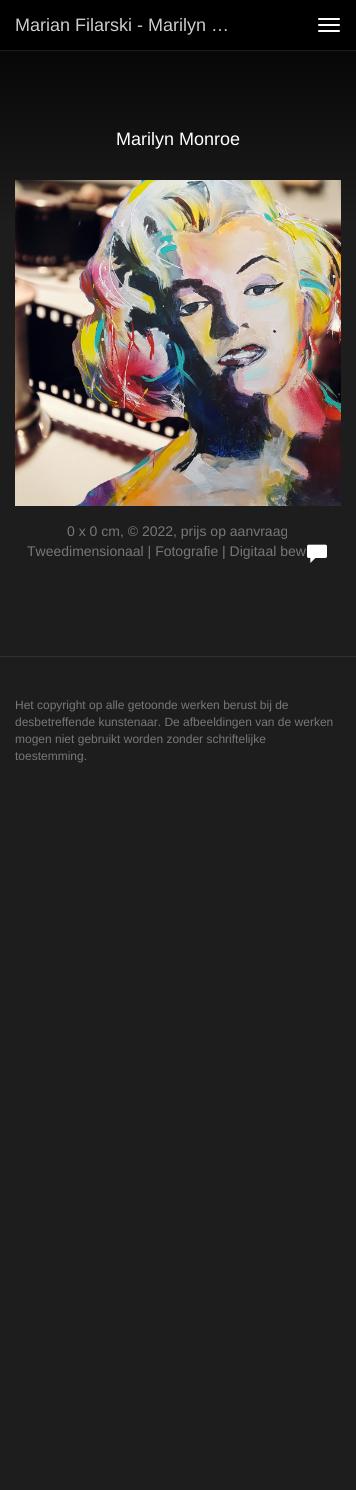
#include <cairo/cairo.h>
#include <math.h>
#include <stddef.h>


static void rounded_rect(cairo_t *cr, double x, double y, double w, double h, double r) {
  cairo_new_sub_path(cr);
  cairo_arc(cr, x + w - r, y + h - r, r, 0, M_PI / 2);
  cairo_arc(cr, x + r, y + h - r, r, M_PI / 2, M_PI);
  cairo_arc(cr, x + r, y + r, r, M_PI, 1.5 * M_PI);
  cairo_arc(cr, x + w - r, y + r, r, 1.5 * M_PI, 2 * M_PI);
  cairo_close_path(cr);
}

static void draw_image(cairo_t *cr, const char *path, double x, double y, double w, double h) {
  cairo_surface_t *image = cairo_image_surface_create_from_png(path);
  cairo_save(cr);
  cairo_set_source_surface(cr, image, x, y);
  cairo_rectangle(cr, x, y, w, h);
  cairo_fill(cr);
  cairo_restore(cr);
  cairo_surface_destroy(image);
}

static void draw(cairo_t *cr) {
  cairo_pattern_t *gradient;
  cairo_set_source_rgb(cr, 1, 1, 1);
  cairo_paint(cr);
  gradient = cairo_pattern_create_linear(178, 0, 178, 1490);
  cairo_pattern_add_color_stop_rgba(gradient, 0, 0, 0, 0, 1);
  cairo_pattern_add_color_stop_rgba(gradient, 0.15, 29 / 255.0, 29 / 255.0, 29 / 255.0, 1);
  cairo_set_source(cr, gradient);
  cairo_pattern_destroy(gradient);
  cairo_rectangle(cr, 0, 51, 356, 1439);
  cairo_fill(cr);
  cairo_set_source_rgb(cr, 0, 0, 0);
  cairo_rectangle(cr, 0, 0, 356, 50);
  cairo_fill(cr);
  cairo_set_source_rgb(cr, 29 / 255.0, 29 / 255.0, 29 / 255.0);
  cairo_rectangle(cr, 0, 50, 356, 1);
  cairo_fill(cr);
  cairo_set_source_rgb(cr, 1, 1, 1);
  rounded_rect(cr, 318, 18, 22, 2, 1);
  cairo_fill(cr);
  rounded_rect(cr, 318, 24, 22, 2, 1);
  cairo_fill(cr);
  rounded_rect(cr, 318, 30, 22, 2, 1);
  cairo_fill(cr);
  draw_image(cr, "images/1.png", 15, 180, 326, 326);
  draw_image(cr, "images/2.png", 307, 544, 20, 19);
  cairo_set_source_rgb(cr, 49 / 255.0, 49 / 255.0, 49 / 255.0);
  cairo_rectangle(cr, 0, 656, 356, 1);
  cairo_fill(cr);
  cairo_select_font_face(cr, "Liberation Sans", CAIRO_FONT_SLANT_NORMAL, CAIRO_FONT_WEIGHT_NORMAL);
  cairo_set_font_size(cr, 18);
  cairo_set_source_rgb(cr, 204 / 255.0, 204 / 255.0, 204 / 255.0);
  cairo_move_to(cr, 15, 31);
  cairo_show_text(cr, "Marian Filarski - Marilyn …");
  cairo_set_source_rgb(cr, 1, 1, 1);
  cairo_move_to(cr, 116, 145);
  cairo_show_text(cr, "Marilyn Monroe");
  cairo_set_font_size(cr, 14);
  cairo_set_source_rgb(cr, 119 / 255.0, 119 / 255.0, 119 / 255.0);
  cairo_move_to(cr, 67, 536);
  cairo_show_text(cr, "0 x 0 cm, © 2022, prijs op aanvraag");
  cairo_move_to(cr, 27, 556);
  cairo_show_text(cr, "Tweedimensionaal | Fotografie | Digitaal bew");
  cairo_set_font_size(cr, 12);
  cairo_move_to(cr, 15, 709);
  cairo_show_text(cr, "Het copyright op alle getoonde werken berust bij de");
  cairo_move_to(cr, 15, 726);
  cairo_show_text(cr, "desbetreffende kunstenaar. De afbeeldingen van de werken");
  cairo_move_to(cr, 15, 743);
  cairo_show_text(cr, "mogen niet gebruikt worden zonder schriftelijke");
  cairo_move_to(cr, 15, 760);
  cairo_show_text(cr, "toestemming.");
}

int main(void) {
  cairo_surface_t *surface = cairo_image_surface_create(CAIRO_FORMAT_RGB24, 356, 1490);
  cairo_t *cr = cairo_create(surface);
  cairo_font_options_t *options = cairo_font_options_create();
  cairo_font_options_set_hint_metrics(options, CAIRO_HINT_METRICS_OFF);
  cairo_font_options_set_hint_style(options, CAIRO_HINT_STYLE_NONE);
  cairo_set_font_options(cr, options);
  cairo_set_miter_limit(cr, 4);
  draw(cr);
  cairo_surface_write_to_png(surface, "out.png");
  cairo_font_options_destroy(options);
  cairo_destroy(cr);
  cairo_surface_destroy(surface);
  return 0;
}
